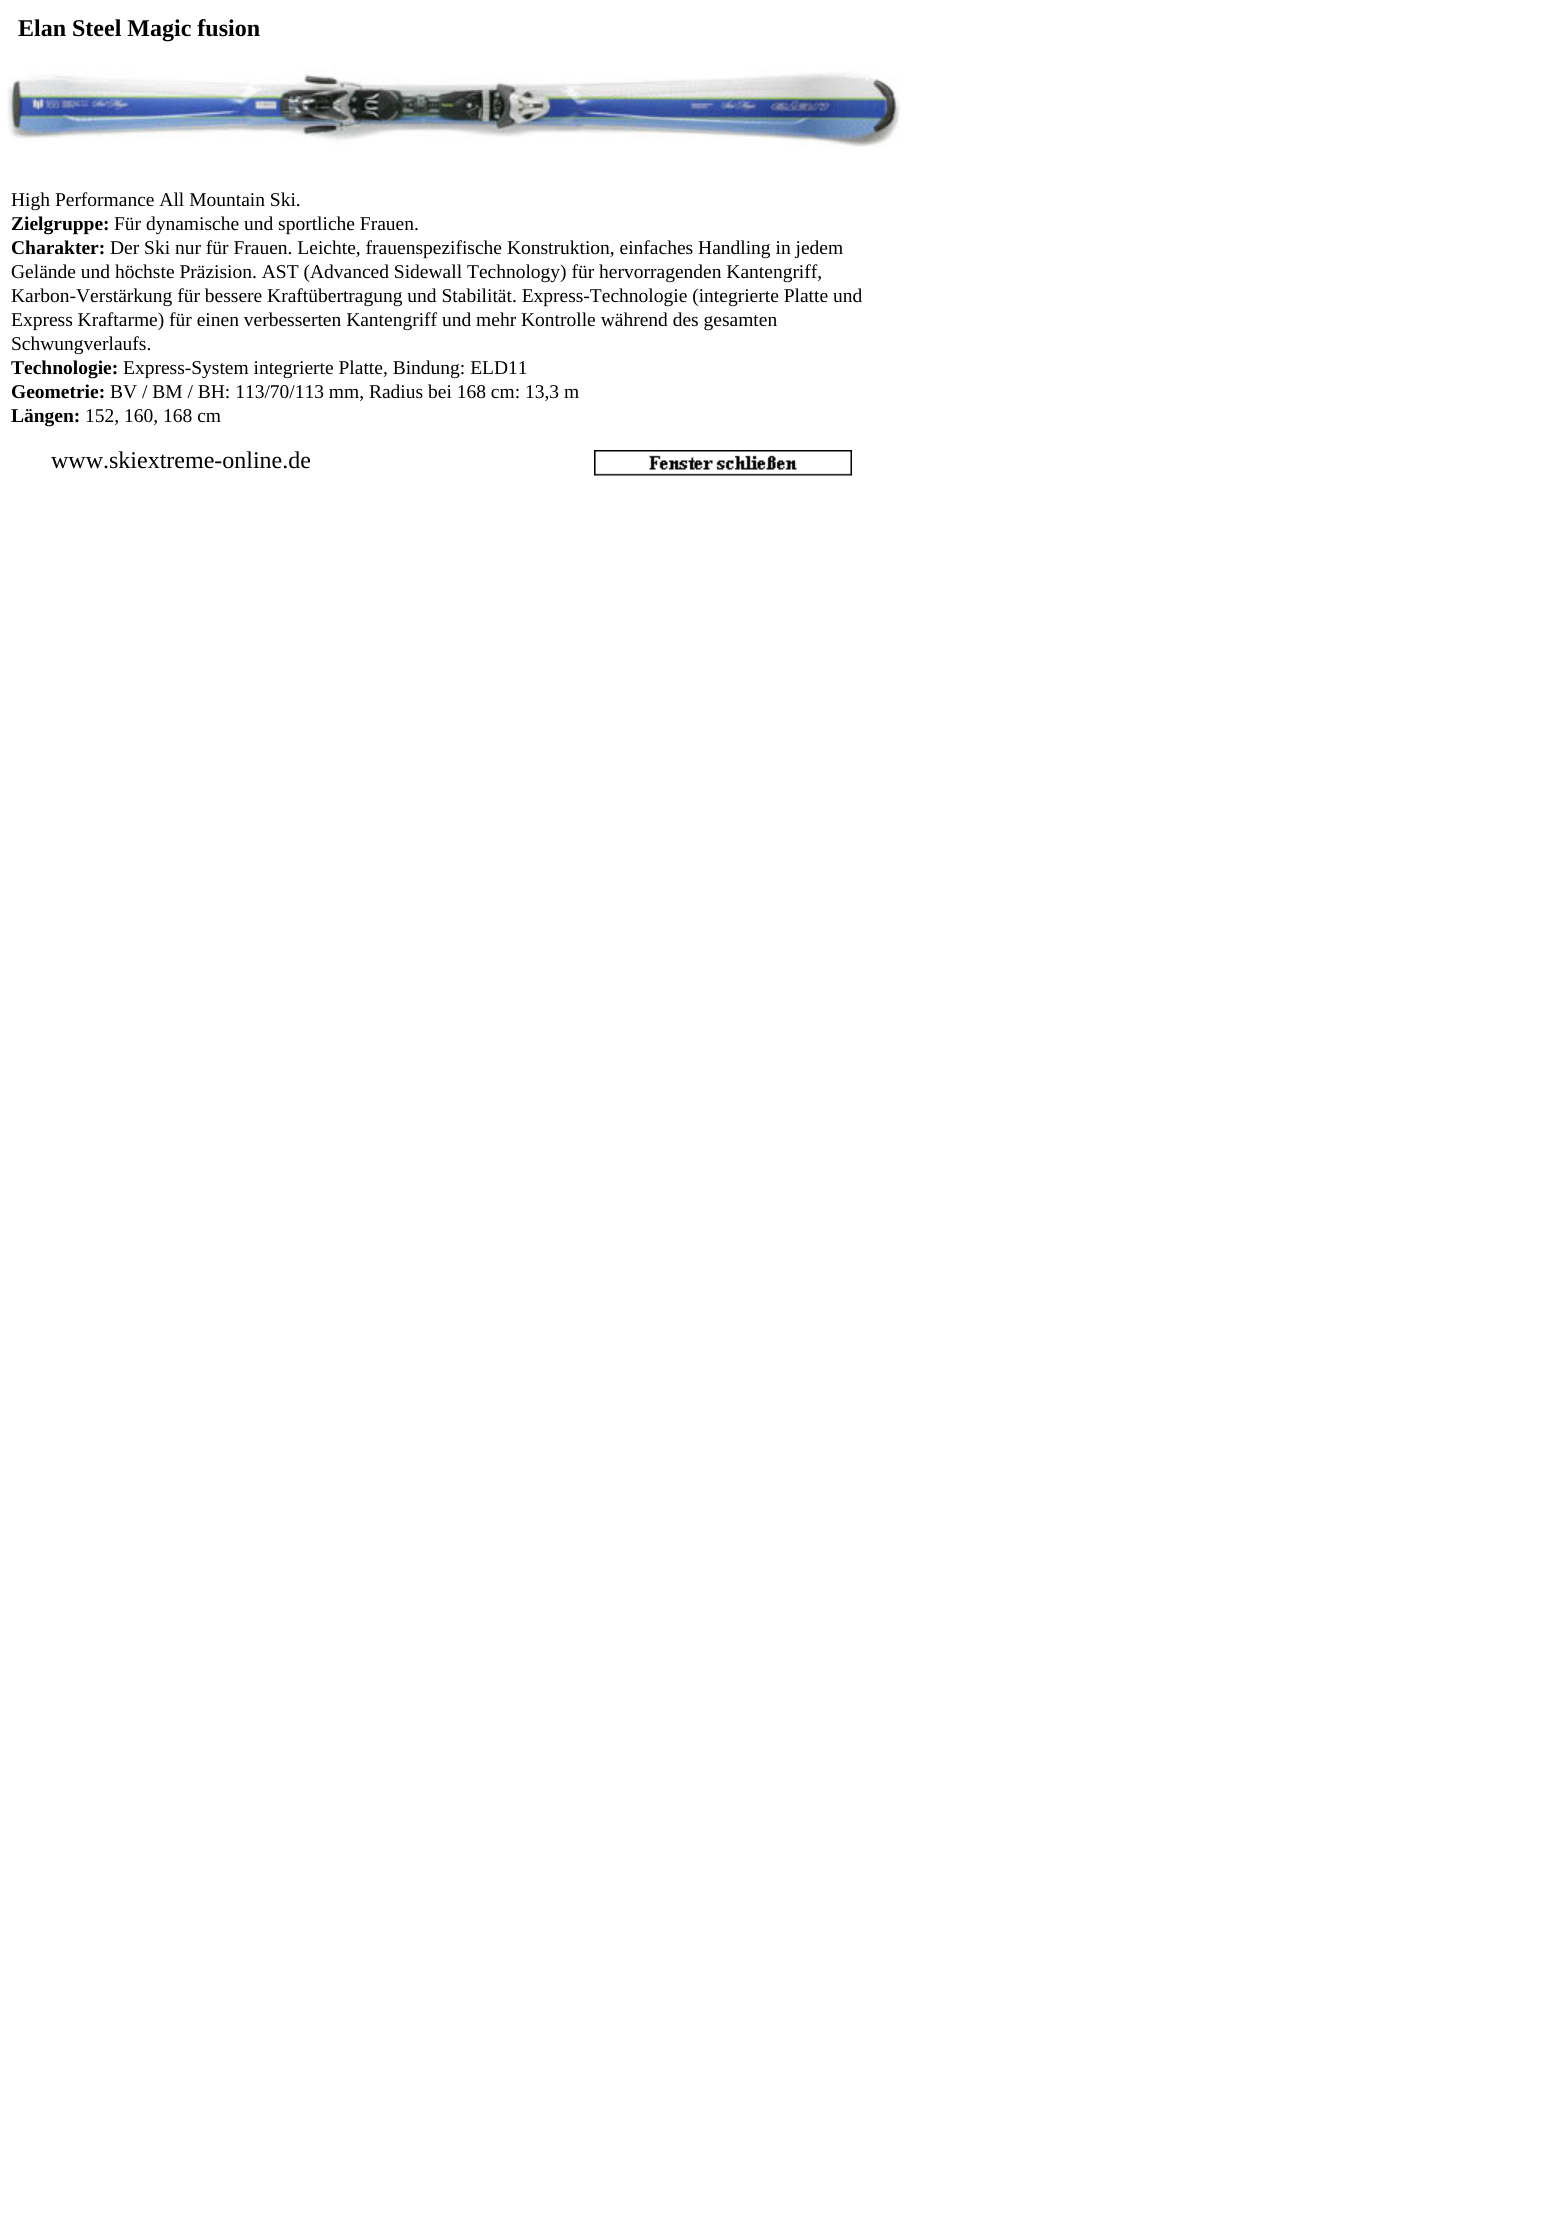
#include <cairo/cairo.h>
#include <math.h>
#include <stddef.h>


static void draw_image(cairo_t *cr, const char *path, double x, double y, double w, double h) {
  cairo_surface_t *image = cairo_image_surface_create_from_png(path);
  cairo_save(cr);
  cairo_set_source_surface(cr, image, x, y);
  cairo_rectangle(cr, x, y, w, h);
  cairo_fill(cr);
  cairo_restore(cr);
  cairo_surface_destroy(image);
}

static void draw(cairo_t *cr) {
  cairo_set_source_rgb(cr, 1, 1, 1);
  cairo_paint(cr);
  draw_image(cr, "images/1.png", 7, 69, 893, 78);
  draw_image(cr, "images/2.png", 594, 450, 258, 26);
  cairo_select_font_face(cr, "Liberation Serif", CAIRO_FONT_SLANT_NORMAL, CAIRO_FONT_WEIGHT_BOLD);
  cairo_set_font_size(cr, 24);
  cairo_set_source_rgb(cr, 0, 0, 0);
  cairo_move_to(cr, 18, 36);
  cairo_show_text(cr, "Elan Steel Magic fusion");
  cairo_select_font_face(cr, "Liberation Serif", CAIRO_FONT_SLANT_NORMAL, CAIRO_FONT_WEIGHT_NORMAL);
  cairo_set_font_size(cr, 19.5);
  cairo_move_to(cr, 11, 206);
  cairo_show_text(cr, "High Performance All Mountain Ski.");
  cairo_select_font_face(cr, "Liberation Serif", CAIRO_FONT_SLANT_NORMAL, CAIRO_FONT_WEIGHT_BOLD);
  cairo_move_to(cr, 11, 230);
  cairo_show_text(cr, "Zielgruppe:");
  cairo_select_font_face(cr, "Liberation Serif", CAIRO_FONT_SLANT_NORMAL, CAIRO_FONT_WEIGHT_NORMAL);
  cairo_move_to(cr, 114, 230);
  cairo_show_text(cr, "Für dynamische und sportliche Frauen.");
  cairo_select_font_face(cr, "Liberation Serif", CAIRO_FONT_SLANT_NORMAL, CAIRO_FONT_WEIGHT_BOLD);
  cairo_move_to(cr, 11, 254);
  cairo_show_text(cr, "Charakter:");
  cairo_select_font_face(cr, "Liberation Serif", CAIRO_FONT_SLANT_NORMAL, CAIRO_FONT_WEIGHT_NORMAL);
  cairo_move_to(cr, 110, 254);
  cairo_show_text(cr, "Der Ski nur für Frauen. Leichte, frauenspezifische Konstruktion, einfaches Handling in jedem");
  cairo_move_to(cr, 11, 278);
  cairo_show_text(cr, "Gelände und höchste Präzision. AST (Advanced Sidewall Technology) für hervorragenden Kantengriff,");
  cairo_move_to(cr, 11, 302);
  cairo_show_text(cr, "Karbon-Verstärkung für bessere Kraftübertragung und Stabilität. Express-Technologie (integrierte Platte und");
  cairo_move_to(cr, 11, 326);
  cairo_show_text(cr, "Express Kraftarme) für einen verbesserten Kantengriff und mehr Kontrolle während des gesamten");
  cairo_move_to(cr, 11, 350);
  cairo_show_text(cr, "Schwungverlaufs.");
  cairo_select_font_face(cr, "Liberation Serif", CAIRO_FONT_SLANT_NORMAL, CAIRO_FONT_WEIGHT_BOLD);
  cairo_move_to(cr, 11, 374);
  cairo_show_text(cr, "Technologie:");
  cairo_select_font_face(cr, "Liberation Serif", CAIRO_FONT_SLANT_NORMAL, CAIRO_FONT_WEIGHT_NORMAL);
  cairo_move_to(cr, 123, 374);
  cairo_show_text(cr, "Express-System integrierte Platte, Bindung: ELD11");
  cairo_select_font_face(cr, "Liberation Serif", CAIRO_FONT_SLANT_NORMAL, CAIRO_FONT_WEIGHT_BOLD);
  cairo_move_to(cr, 11, 398);
  cairo_show_text(cr, "Geometrie:");
  cairo_select_font_face(cr, "Liberation Serif", CAIRO_FONT_SLANT_NORMAL, CAIRO_FONT_WEIGHT_NORMAL);
  cairo_move_to(cr, 110, 398);
  cairo_show_text(cr, "BV / BM / BH: 113/70/113 mm, Radius bei 168 cm: 13,3 m");
  cairo_select_font_face(cr, "Liberation Serif", CAIRO_FONT_SLANT_NORMAL, CAIRO_FONT_WEIGHT_BOLD);
  cairo_move_to(cr, 11, 422);
  cairo_show_text(cr, "Längen:");
  cairo_select_font_face(cr, "Liberation Serif", CAIRO_FONT_SLANT_NORMAL, CAIRO_FONT_WEIGHT_NORMAL);
  cairo_move_to(cr, 85, 422);
  cairo_show_text(cr, "152, 160, 168 cm");
  cairo_set_font_size(cr, 24);
  cairo_move_to(cr, 51, 468);
  cairo_show_text(cr, "www.skiextreme-online.de");
}

int main(void) {
  cairo_surface_t *surface = cairo_image_surface_create(CAIRO_FORMAT_RGB24, 1552, 2224);
  cairo_t *cr = cairo_create(surface);
  cairo_font_options_t *options = cairo_font_options_create();
  cairo_font_options_set_hint_metrics(options, CAIRO_HINT_METRICS_OFF);
  cairo_font_options_set_hint_style(options, CAIRO_HINT_STYLE_NONE);
  cairo_set_font_options(cr, options);
  cairo_set_miter_limit(cr, 4);
  draw(cr);
  cairo_surface_write_to_png(surface, "out.png");
  cairo_font_options_destroy(options);
  cairo_destroy(cr);
  cairo_surface_destroy(surface);
  return 0;
}
